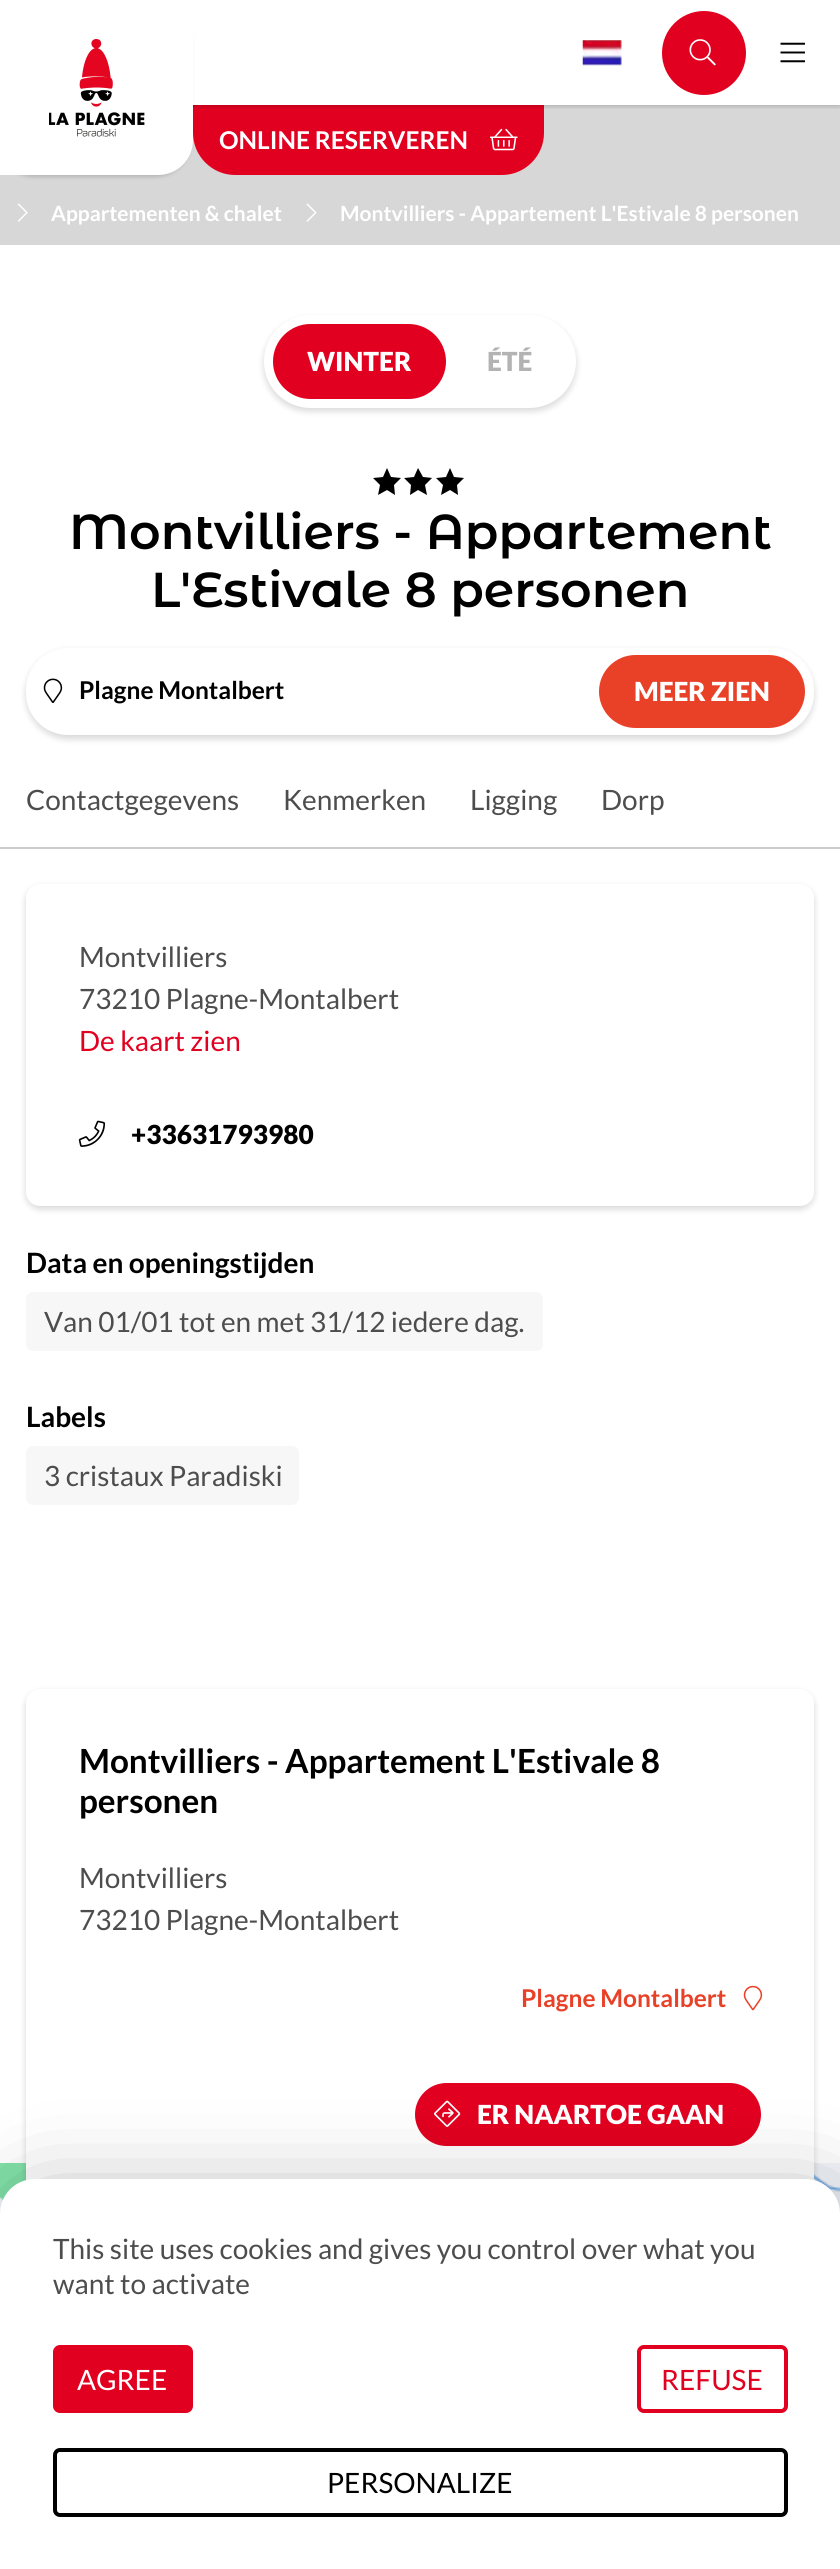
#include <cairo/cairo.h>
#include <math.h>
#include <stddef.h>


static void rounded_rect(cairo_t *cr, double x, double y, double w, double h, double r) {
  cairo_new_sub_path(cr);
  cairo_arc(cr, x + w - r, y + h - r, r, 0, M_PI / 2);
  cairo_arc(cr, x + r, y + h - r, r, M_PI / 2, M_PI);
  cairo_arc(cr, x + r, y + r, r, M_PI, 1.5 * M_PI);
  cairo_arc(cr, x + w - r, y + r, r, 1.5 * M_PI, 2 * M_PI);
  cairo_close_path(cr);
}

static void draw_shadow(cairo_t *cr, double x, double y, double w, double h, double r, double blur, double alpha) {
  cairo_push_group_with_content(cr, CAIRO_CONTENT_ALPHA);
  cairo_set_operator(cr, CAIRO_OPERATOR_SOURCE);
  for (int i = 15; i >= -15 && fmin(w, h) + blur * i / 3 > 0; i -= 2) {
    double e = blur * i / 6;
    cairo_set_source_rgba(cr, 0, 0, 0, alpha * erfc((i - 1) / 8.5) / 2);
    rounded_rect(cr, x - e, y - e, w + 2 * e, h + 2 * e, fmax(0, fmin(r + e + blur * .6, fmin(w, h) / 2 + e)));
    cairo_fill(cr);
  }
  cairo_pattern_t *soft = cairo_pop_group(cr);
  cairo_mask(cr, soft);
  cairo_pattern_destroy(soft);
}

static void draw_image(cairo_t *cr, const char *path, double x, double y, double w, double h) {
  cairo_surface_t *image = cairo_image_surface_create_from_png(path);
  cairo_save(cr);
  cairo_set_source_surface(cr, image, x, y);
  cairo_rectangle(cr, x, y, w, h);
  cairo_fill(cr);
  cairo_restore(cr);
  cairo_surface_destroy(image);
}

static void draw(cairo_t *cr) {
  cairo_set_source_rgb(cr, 1, 1, 1);
  cairo_paint(cr);
  cairo_set_source_rgb(cr, 215 / 255.0, 215 / 255.0, 215 / 255.0);
  cairo_rectangle(cr, 0, 105, 840, 140);
  cairo_fill(cr);
  cairo_set_source_rgb(cr, 226 / 255.0, 0, 32 / 255.0);
  cairo_new_path(cr);
  cairo_move_to(cr, 193, 105);
  cairo_line_to(cr, 544, 105);
  cairo_line_to(cr, 544, 133);
  cairo_curve_to(cr, 544, 156, 525, 175, 502, 175);
  cairo_line_to(cr, 235, 175);
  cairo_curve_to(cr, 212, 175, 193, 156, 193, 133);
  cairo_close_path(cr);
  cairo_fill(cr);
  cairo_save(cr);
  cairo_rectangle(cr, 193, 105, 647, 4);
  cairo_clip(cr);
  cairo_set_source_rgb(cr, 0, 0, 0);
  draw_shadow(cr, 0, 2, 840, 105, 0, 2, 0.16);
  cairo_restore(cr);
  draw_image(cr, "images/1.png", 582, 40, 40, 26);
  cairo_arc(cr, 704, 53, 41, 0, 2 * M_PI);
  cairo_fill_preserve(cr);
  cairo_stroke(cr);
  draw_image(cr, "images/2.png", 689, 39, 27, 27);
  draw_image(cr, "images/3.png", 780, 42, 25, 21);
  cairo_set_source_rgb(cr, 0, 0, 0);
  draw_shadow(cr, -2, 2, 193, 175, 35, 2, 0.16);
  cairo_set_source_rgb(cr, 1, 1, 1);
  cairo_new_path(cr);
  cairo_move_to(cr, 0, 0);
  cairo_line_to(cr, 193, 0);
  cairo_line_to(cr, 193, 140);
  cairo_curve_to(cr, 193, 159.5, 177.5, 175, 158, 175);
  cairo_line_to(cr, 0, 175);
  cairo_close_path(cr);
  cairo_fill(cr);
  draw_image(cr, "images/4.png", 49, 39, 96, 98);
  draw_image(cr, "images/5.png", 490, 128, 28, 23);
  draw_image(cr, "images/6.png", 17, 203, 11, 19);
  draw_image(cr, "images/7.png", 306, 203, 11, 19);
  cairo_set_source_rgb(cr, 0, 0, 0);
  draw_shadow(cr, 264, 319, 312, 92, 46, 3.5, 0.16);
  cairo_set_source_rgb(cr, 1, 1, 1);
  rounded_rect(cr, 264, 315, 312, 93, 46.5);
  cairo_fill(cr);
  cairo_set_source_rgb(cr, 226 / 255.0, 0, 32 / 255.0);
  rounded_rect(cr, 273, 324, 173, 75, 37.5);
  cairo_fill(cr);
  cairo_set_source_rgb(cr, 0, 0, 0);
  cairo_new_path(cr);
  cairo_move_to(cr, 387, 468);
  cairo_line_to(cr, 391, 477);
  cairo_line_to(cr, 401, 478);
  cairo_line_to(cr, 394, 485);
  cairo_line_to(cr, 395, 495);
  cairo_line_to(cr, 387, 490);
  cairo_line_to(cr, 378, 495);
  cairo_line_to(cr, 380, 485);
  cairo_line_to(cr, 373, 478);
  cairo_line_to(cr, 383, 477);
  cairo_close_path(cr);
  cairo_move_to(cr, 418, 468);
  cairo_line_to(cr, 423, 477);
  cairo_line_to(cr, 432, 478);
  cairo_line_to(cr, 425, 485);
  cairo_line_to(cr, 427, 495);
  cairo_line_to(cr, 418, 490);
  cairo_line_to(cr, 410, 495);
  cairo_line_to(cr, 411, 485);
  cairo_line_to(cr, 404, 478);
  cairo_line_to(cr, 414, 477);
  cairo_close_path(cr);
  cairo_move_to(cr, 450, 468);
  cairo_line_to(cr, 454, 477);
  cairo_line_to(cr, 464, 478);
  cairo_line_to(cr, 457, 485);
  cairo_line_to(cr, 458, 495);
  cairo_line_to(cr, 450, 490);
  cairo_line_to(cr, 441, 495);
  cairo_line_to(cr, 443, 485);
  cairo_line_to(cr, 436, 478);
  cairo_line_to(cr, 446, 477);
  cairo_close_path(cr);
  cairo_fill(cr);
  cairo_set_source_rgb(cr, 0, 0, 0);
  draw_shadow(cr, 26, 651, 788, 88, 42, 3.5, 0.16);
  cairo_set_source_rgb(cr, 1, 1, 1);
  rounded_rect(cr, 26, 648, 788, 87, 42);
  cairo_fill(cr);
  draw_image(cr, "images/8.png", 43, 678, 20, 25);
  cairo_set_source_rgb(cr, 232 / 255.0, 65 / 255.0, 39 / 255.0);
  rounded_rect(cr, 599, 655, 206, 73, 36.5);
  cairo_fill(cr);
  cairo_set_source_rgb(cr, 204 / 255.0, 204 / 255.0, 204 / 255.0);
  cairo_rectangle(cr, 0, 847, 840, 2);
  cairo_fill(cr);
  cairo_set_source_rgb(cr, 0, 0, 0);
  draw_shadow(cr, 26, 887, 788, 322, 14, 3.5, 0.16);
  cairo_set_source_rgb(cr, 1, 1, 1);
  rounded_rect(cr, 26, 884, 788, 322, 14);
  cairo_fill(cr);
  draw_image(cr, "images/9.png", 78, 1120, 28, 27);
  cairo_set_source_rgb(cr, 247 / 255.0, 247 / 255.0, 247 / 255.0);
  rounded_rect(cr, 26, 1292, 517, 59, 7);
  cairo_fill(cr);
  rounded_rect(cr, 26, 1446, 273, 59, 7);
  cairo_fill(cr);
  draw_image(cr, "images/12.png", 0, 2163, 840, 51);
  cairo_set_source_rgb(cr, 0, 0, 0);
  draw_shadow(cr, 26, 1692, 788, 510, 14, 3.5, 0.16);
  cairo_set_source_rgb(cr, 1, 1, 1);
  rounded_rect(cr, 26, 1689, 788, 509, 14);
  cairo_fill(cr);
  draw_image(cr, "images/10.png", 743, 1985, 20, 26);
  cairo_set_source_rgb(cr, 226 / 255.0, 0, 32 / 255.0);
  rounded_rect(cr, 416, 2084, 344, 61, 30.5);
  cairo_fill_preserve(cr);
  cairo_stroke(cr);
  draw_image(cr, "images/11.png", 434, 2100, 27, 27);
  cairo_set_source_rgb(cr, 0, 0, 0);
  draw_shadow(cr, 9, 2195, 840, 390, 35, 44, 0.3);
  cairo_set_source_rgb(cr, 1, 1, 1);
  cairo_new_path(cr);
  cairo_move_to(cr, 35, 2179);
  cairo_line_to(cr, 805, 2179);
  cairo_curve_to(cr, 824.5, 2179, 840, 2194.5, 840, 2214);
  cairo_line_to(cr, 840, 2569);
  cairo_line_to(cr, 0, 2569);
  cairo_line_to(cr, 0, 2214);
  cairo_curve_to(cr, 0, 2194.5, 15.5, 2179, 35, 2179);
  cairo_close_path(cr);
  cairo_fill(cr);
  cairo_set_source_rgb(cr, 226 / 255.0, 0, 32 / 255.0);
  rounded_rect(cr, 55, 2347, 136, 64, 5);
  cairo_fill_preserve(cr);
  cairo_set_line_width(cr, 4);
  cairo_stroke(cr);
  rounded_rect(cr, 639, 2347, 147, 64, 5);
  cairo_stroke(cr);
  rounded_rect(cr, 55, 2450, 731, 65, 5);
  cairo_set_source_rgb(cr, 0, 0, 0);
  cairo_stroke(cr);
  cairo_select_font_face(cr, "Lato", CAIRO_FONT_SLANT_NORMAL, CAIRO_FONT_WEIGHT_BOLD);
  cairo_set_font_size(cr, 24.5);
  cairo_set_source_rgb(cr, 1, 1, 1);
  cairo_move_to(cr, 219, 149);
  cairo_show_text(cr, "ONLINE RESERVEREN");
  cairo_set_font_size(cr, 21);
  cairo_move_to(cr, 51, 221);
  cairo_show_text(cr, "Appartementen & chalet");
  cairo_move_to(cr, 340, 221);
  cairo_show_text(cr, "Montvilliers - Appartement L'Estivale 8 personen");
  cairo_select_font_face(cr, "Lato Black", CAIRO_FONT_SLANT_NORMAL, CAIRO_FONT_WEIGHT_NORMAL);
  cairo_set_font_size(cr, 26.25);
  cairo_move_to(cr, 307, 371);
  cairo_show_text(cr, "WINTER");
  cairo_set_source_rgb(cr, 179 / 255.0, 179 / 255.0, 179 / 255.0);
  cairo_move_to(cr, 487, 371);
  cairo_show_text(cr, "ÉTÉ");
  cairo_select_font_face(cr, "Montserrat Alternates SemiBold", CAIRO_FONT_SLANT_NORMAL, CAIRO_FONT_WEIGHT_NORMAL);
  cairo_set_font_size(cr, 49);
  cairo_set_source_rgb(cr, 0, 0, 0);
  cairo_move_to(cr, 69, 549);
  cairo_show_text(cr, "Montvilliers - Appartement");
  cairo_move_to(cr, 151, 607);
  cairo_show_text(cr, "L'Estivale 8 personen");
  cairo_select_font_face(cr, "Lato", CAIRO_FONT_SLANT_NORMAL, CAIRO_FONT_WEIGHT_BOLD);
  cairo_set_font_size(cr, 24.5);
  cairo_move_to(cr, 79, 699);
  cairo_show_text(cr, "Plagne Montalbert");
  cairo_select_font_face(cr, "Lato Black", CAIRO_FONT_SLANT_NORMAL, CAIRO_FONT_WEIGHT_NORMAL);
  cairo_set_font_size(cr, 26.25);
  cairo_set_source_rgb(cr, 1, 1, 1);
  cairo_move_to(cr, 634, 701);
  cairo_show_text(cr, "MEER ZIEN");
  cairo_select_font_face(cr, "Lato", CAIRO_FONT_SLANT_NORMAL, CAIRO_FONT_WEIGHT_NORMAL);
  cairo_set_font_size(cr, 28);
  cairo_set_source_rgb(cr, 77 / 255.0, 77 / 255.0, 77 / 255.0);
  cairo_move_to(cr, 26, 810);
  cairo_show_text(cr, "Contactgegevens");
  cairo_move_to(cr, 283, 810);
  cairo_show_text(cr, "Kenmerken");
  cairo_move_to(cr, 470, 810);
  cairo_show_text(cr, "Ligging");
  cairo_move_to(cr, 601, 810);
  cairo_show_text(cr, "Dorp");
  cairo_move_to(cr, 79, 967);
  cairo_show_text(cr, "Montvilliers");
  cairo_move_to(cr, 79, 1009);
  cairo_show_text(cr, "73210 Plagne-Montalbert");
  cairo_set_source_rgb(cr, 226 / 255.0, 0, 32 / 255.0);
  cairo_move_to(cr, 79, 1051);
  cairo_show_text(cr, "De kaart zien");
  cairo_select_font_face(cr, "Lato Black", CAIRO_FONT_SLANT_NORMAL, CAIRO_FONT_WEIGHT_NORMAL);
  cairo_set_font_size(cr, 26.25);
  cairo_set_source_rgb(cr, 0, 0, 0);
  cairo_move_to(cr, 131, 1144);
  cairo_show_text(cr, "+33631793980");
  cairo_select_font_face(cr, "Lato", CAIRO_FONT_SLANT_NORMAL, CAIRO_FONT_WEIGHT_BOLD);
  cairo_set_font_size(cr, 28);
  cairo_move_to(cr, 26, 1273);
  cairo_show_text(cr, "Data en openingstijden");
  cairo_select_font_face(cr, "Lato", CAIRO_FONT_SLANT_NORMAL, CAIRO_FONT_WEIGHT_NORMAL);
  cairo_set_source_rgb(cr, 77 / 255.0, 77 / 255.0, 77 / 255.0);
  cairo_move_to(cr, 44, 1332);
  cairo_show_text(cr, "Van 01/01 tot en met 31/12 iedere dag.");
  cairo_select_font_face(cr, "Lato", CAIRO_FONT_SLANT_NORMAL, CAIRO_FONT_WEIGHT_BOLD);
  cairo_set_source_rgb(cr, 0, 0, 0);
  cairo_move_to(cr, 26, 1427);
  cairo_show_text(cr, "Labels");
  cairo_select_font_face(cr, "Lato", CAIRO_FONT_SLANT_NORMAL, CAIRO_FONT_WEIGHT_NORMAL);
  cairo_set_source_rgb(cr, 77 / 255.0, 77 / 255.0, 77 / 255.0);
  cairo_move_to(cr, 44, 1486);
  cairo_show_text(cr, "3 cristaux Paradiski");
  cairo_select_font_face(cr, "Lato", CAIRO_FONT_SLANT_NORMAL, CAIRO_FONT_WEIGHT_BOLD);
  cairo_set_font_size(cr, 33.25);
  cairo_set_source_rgb(cr, 0, 0, 0);
  cairo_move_to(cr, 79, 1773);
  cairo_show_text(cr, "Montvilliers - Appartement L'Estivale 8");
  cairo_move_to(cr, 79, 1813);
  cairo_show_text(cr, "personen");
  cairo_select_font_face(cr, "Lato", CAIRO_FONT_SLANT_NORMAL, CAIRO_FONT_WEIGHT_NORMAL);
  cairo_set_font_size(cr, 28);
  cairo_set_source_rgb(cr, 77 / 255.0, 77 / 255.0, 77 / 255.0);
  cairo_move_to(cr, 79, 1888);
  cairo_show_text(cr, "Montvilliers");
  cairo_move_to(cr, 79, 1930);
  cairo_show_text(cr, "73210 Plagne-Montalbert");
  cairo_select_font_face(cr, "Lato", CAIRO_FONT_SLANT_NORMAL, CAIRO_FONT_WEIGHT_BOLD);
  cairo_set_font_size(cr, 24.5);
  cairo_set_source_rgb(cr, 232 / 255.0, 65 / 255.0, 39 / 255.0);
  cairo_move_to(cr, 521, 2007);
  cairo_show_text(cr, "Plagne Montalbert");
  cairo_select_font_face(cr, "Lato Black", CAIRO_FONT_SLANT_NORMAL, CAIRO_FONT_WEIGHT_NORMAL);
  cairo_set_font_size(cr, 26.25);
  cairo_set_source_rgb(cr, 1, 1, 1);
  cairo_move_to(cr, 477, 2124);
  cairo_show_text(cr, "ER NAARTOE GAAN");
  cairo_select_font_face(cr, "Lato", CAIRO_FONT_SLANT_NORMAL, CAIRO_FONT_WEIGHT_NORMAL);
  cairo_set_font_size(cr, 28);
  cairo_set_source_rgb(cr, 77 / 255.0, 77 / 255.0, 77 / 255.0);
  cairo_move_to(cr, 53, 2259);
  cairo_show_text(cr, "This site uses cookies and gives you control over what you");
  cairo_move_to(cr, 53, 2294);
  cairo_show_text(cr, "want to activate");
  cairo_set_source_rgb(cr, 1, 1, 1);
  cairo_move_to(cr, 77, 2390);
  cairo_show_text(cr, "AGREE");
  cairo_set_source_rgb(cr, 226 / 255.0, 0, 32 / 255.0);
  cairo_move_to(cr, 661, 2390);
  cairo_show_text(cr, "REFUSE");
  cairo_set_source_rgb(cr, 0, 0, 0);
  cairo_move_to(cr, 327, 2493);
  cairo_show_text(cr, "PERSONALIZE");
}

int main(void) {
  cairo_surface_t *surface = cairo_image_surface_create(CAIRO_FORMAT_RGB24, 840, 2569);
  cairo_t *cr = cairo_create(surface);
  cairo_font_options_t *options = cairo_font_options_create();
  cairo_font_options_set_hint_metrics(options, CAIRO_HINT_METRICS_OFF);
  cairo_font_options_set_hint_style(options, CAIRO_HINT_STYLE_NONE);
  cairo_set_font_options(cr, options);
  cairo_set_miter_limit(cr, 4);
  draw(cr);
  cairo_surface_write_to_png(surface, "out.png");
  cairo_font_options_destroy(options);
  cairo_destroy(cr);
  cairo_surface_destroy(surface);
  return 0;
}
